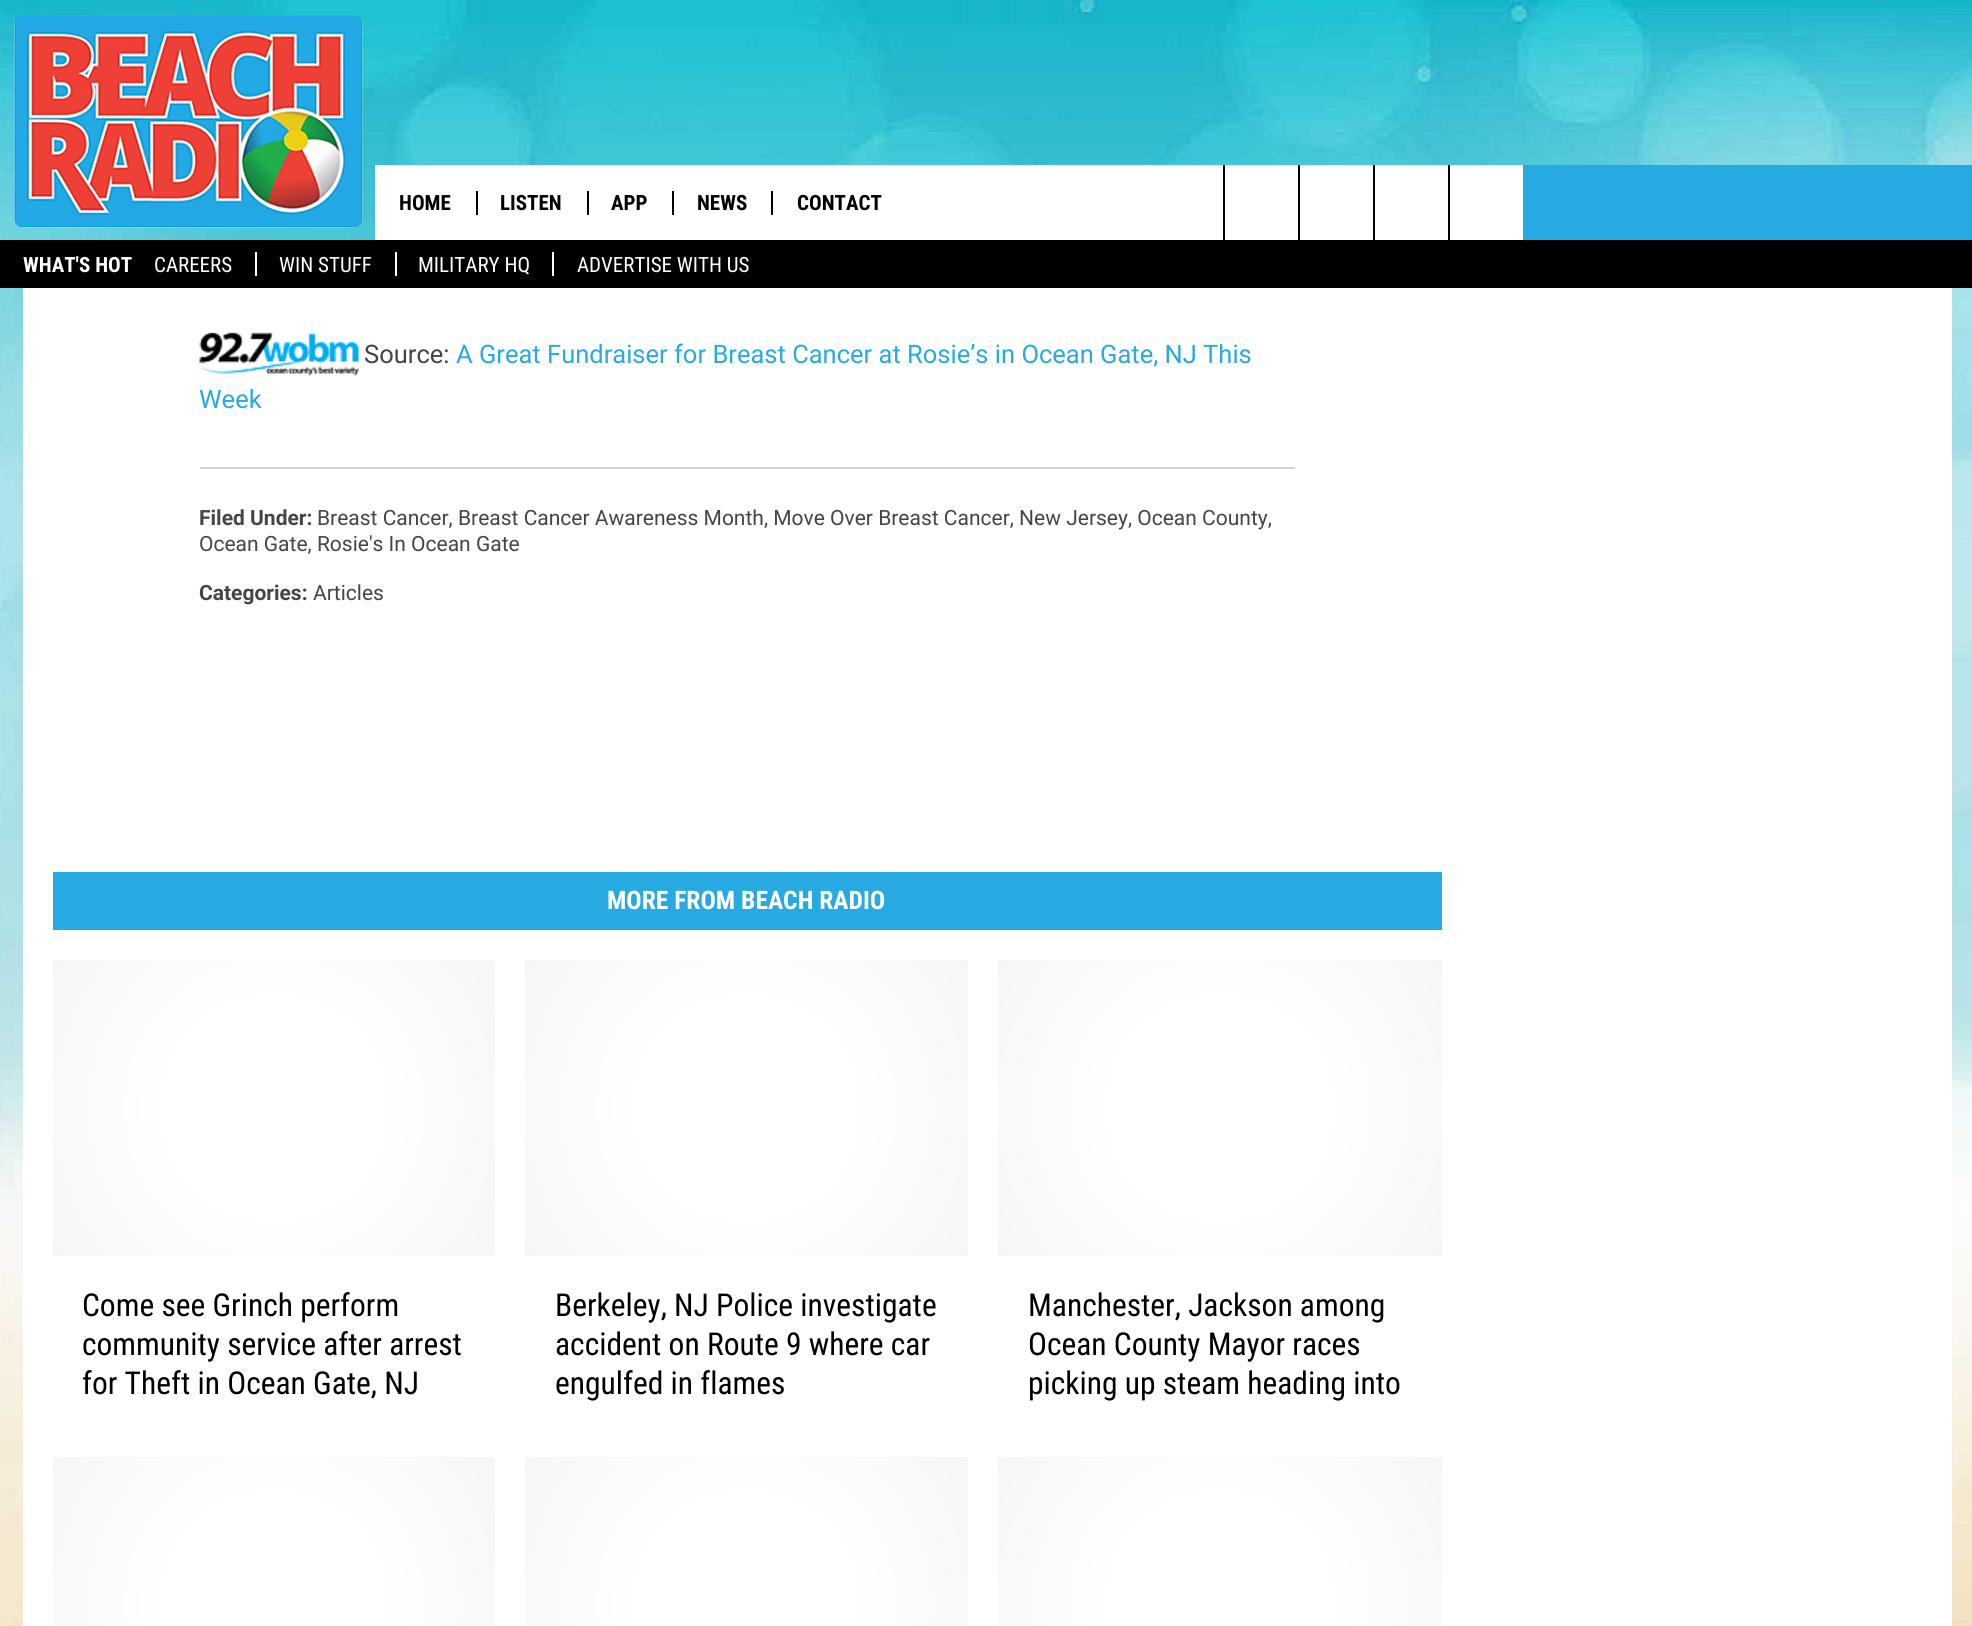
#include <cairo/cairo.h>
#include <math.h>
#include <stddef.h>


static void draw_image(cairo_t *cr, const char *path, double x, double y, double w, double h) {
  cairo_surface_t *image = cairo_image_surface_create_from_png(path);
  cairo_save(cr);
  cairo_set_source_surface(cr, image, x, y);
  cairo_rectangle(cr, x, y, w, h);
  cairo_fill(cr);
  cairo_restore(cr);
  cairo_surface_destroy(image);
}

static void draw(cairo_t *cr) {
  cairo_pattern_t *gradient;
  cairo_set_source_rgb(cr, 1, 1, 1);
  cairo_paint(cr);
  draw_image(cr, "images/1.png", 0, 288, 1972, 1338);
  draw_image(cr, "images/2.png", 0, 0, 1972, 240);
  draw_image(cr, "images/3.png", 14, 15, 349, 213);
  cairo_set_source_rgb(cr, 1, 1, 1);
  cairo_rectangle(cr, 375, 165, 1148, 75);
  cairo_fill(cr);
  cairo_set_source_rgb(cr, 0, 0, 0);
  cairo_rectangle(cr, 476, 191, 2, 24);
  cairo_fill(cr);
  cairo_rectangle(cr, 587, 191, 2, 24);
  cairo_fill(cr);
  cairo_rectangle(cr, 672, 191, 2, 24);
  cairo_fill(cr);
  cairo_rectangle(cr, 771, 191, 2, 24);
  cairo_fill(cr);
  cairo_rectangle(cr, 1223, 165, 2, 75);
  cairo_fill(cr);
  cairo_rectangle(cr, 1298, 165, 2, 75);
  cairo_fill(cr);
  cairo_rectangle(cr, 1373, 165, 2, 75);
  cairo_fill(cr);
  cairo_rectangle(cr, 1448, 165, 2, 75);
  cairo_fill(cr);
  cairo_set_source_rgb(cr, 39 / 255.0, 169 / 255.0, 225 / 255.0);
  cairo_rectangle(cr, 1523, 165, 449, 75);
  cairo_fill(cr);
  cairo_set_source_rgb(cr, 0, 0, 0);
  cairo_rectangle(cr, 0, 240, 1972, 48);
  cairo_fill(cr);
  cairo_set_source_rgb(cr, 1, 1, 1);
  cairo_rectangle(cr, 255, 252, 2, 24);
  cairo_fill(cr);
  cairo_rectangle(cr, 395, 252, 2, 24);
  cairo_fill(cr);
  cairo_rectangle(cr, 552, 252, 2, 24);
  cairo_fill(cr);
  cairo_rectangle(cr, 23, 288, 1929, 1338);
  cairo_fill(cr);
  draw_image(cr, "images/4.png", 199, 332, 160, 44);
  cairo_set_source_rgb(cr, 209 / 255.0, 208 / 255.0, 210 / 255.0);
  cairo_rectangle(cr, 200, 467, 1095, 2);
  cairo_fill(cr);
  cairo_set_source_rgb(cr, 39 / 255.0, 169 / 255.0, 225 / 255.0);
  cairo_rectangle(cr, 53, 872, 1389, 58);
  cairo_fill(cr);
  gradient = cairo_pattern_create_radial(274, 1108, 0, 274, 1108, 266);
  cairo_pattern_add_color_stop_rgba(gradient, 0.4, 1, 1, 1, 1);
  cairo_pattern_add_color_stop_rgba(gradient, 1, 246 / 255.0, 246 / 255.0, 246 / 255.0, 1);
  cairo_set_source(cr, gradient);
  cairo_pattern_destroy(gradient);
  cairo_rectangle(cr, 53, 960, 442, 296);
  cairo_fill(cr);
  gradient = cairo_pattern_create_radial(746, 1108, 0, 746, 1108, 266);
  cairo_pattern_add_color_stop_rgba(gradient, 0.4, 1, 1, 1, 1);
  cairo_pattern_add_color_stop_rgba(gradient, 1, 246 / 255.0, 246 / 255.0, 246 / 255.0, 1);
  cairo_set_source(cr, gradient);
  cairo_pattern_destroy(gradient);
  cairo_rectangle(cr, 525, 960, 443, 296);
  cairo_fill(cr);
  gradient = cairo_pattern_create_radial(1220, 1108, 0, 1220, 1108, 267);
  cairo_pattern_add_color_stop_rgba(gradient, 0.4, 1, 1, 1, 1);
  cairo_pattern_add_color_stop_rgba(gradient, 1, 246 / 255.0, 246 / 255.0, 246 / 255.0, 1);
  cairo_set_source(cr, gradient);
  cairo_pattern_destroy(gradient);
  cairo_rectangle(cr, 998, 960, 444, 296);
  cairo_fill(cr);
  gradient = cairo_pattern_create_radial(274, 1604, 0, 274, 1604, 266);
  cairo_pattern_add_color_stop_rgba(gradient, 0.4, 1, 1, 1, 1);
  cairo_pattern_add_color_stop_rgba(gradient, 1, 246 / 255.0, 246 / 255.0, 246 / 255.0, 1);
  cairo_set_source(cr, gradient);
  cairo_pattern_destroy(gradient);
  cairo_rectangle(cr, 53, 1457, 442, 169);
  cairo_fill(cr);
  gradient = cairo_pattern_create_radial(746, 1604, 0, 746, 1604, 266);
  cairo_pattern_add_color_stop_rgba(gradient, 0.4, 1, 1, 1, 1);
  cairo_pattern_add_color_stop_rgba(gradient, 1, 246 / 255.0, 246 / 255.0, 246 / 255.0, 1);
  cairo_set_source(cr, gradient);
  cairo_pattern_destroy(gradient);
  cairo_rectangle(cr, 525, 1457, 443, 169);
  cairo_fill(cr);
  gradient = cairo_pattern_create_radial(1220, 1604, 0, 1220, 1604, 267);
  cairo_pattern_add_color_stop_rgba(gradient, 0.4, 1, 1, 1, 1);
  cairo_pattern_add_color_stop_rgba(gradient, 1, 246 / 255.0, 246 / 255.0, 246 / 255.0, 1);
  cairo_set_source(cr, gradient);
  cairo_pattern_destroy(gradient);
  cairo_rectangle(cr, 998, 1457, 444, 169);
  cairo_fill(cr);
  cairo_select_font_face(cr, "Roboto Condensed", CAIRO_FONT_SLANT_NORMAL, CAIRO_FONT_WEIGHT_BOLD);
  cairo_set_font_size(cr, 21);
  cairo_set_source_rgb(cr, 0, 0, 0);
  cairo_move_to(cr, 399, 210);
  cairo_show_text(cr, "HOME");
  cairo_move_to(cr, 500, 210);
  cairo_show_text(cr, "LISTEN");
  cairo_move_to(cr, 611, 210);
  cairo_show_text(cr, "APP");
  cairo_move_to(cr, 697, 210);
  cairo_show_text(cr, "NEWS");
  cairo_move_to(cr, 797, 210);
  cairo_show_text(cr, "CONTACT");
  cairo_set_source_rgb(cr, 1, 1, 1);
  cairo_move_to(cr, 23, 272);
  cairo_show_text(cr, "WHAT'S HOT");
  cairo_select_font_face(cr, "Roboto Condensed", CAIRO_FONT_SLANT_NORMAL, CAIRO_FONT_WEIGHT_NORMAL);
  cairo_move_to(cr, 154, 272);
  cairo_show_text(cr, "CAREERS");
  cairo_move_to(cr, 279, 272);
  cairo_show_text(cr, "WIN STUFF");
  cairo_move_to(cr, 418, 272);
  cairo_show_text(cr, "MILITARY HQ");
  cairo_move_to(cr, 577, 272);
  cairo_show_text(cr, "ADVERTISE WITH US");
  cairo_select_font_face(cr, "Roboto", CAIRO_FONT_SLANT_NORMAL, CAIRO_FONT_WEIGHT_NORMAL);
  cairo_set_font_size(cr, 25.5);
  cairo_set_source_rgb(cr, 69 / 255.0, 68 / 255.0, 74 / 255.0);
  cairo_move_to(cr, 364, 363);
  cairo_show_text(cr, "Source:");
  cairo_set_source_rgb(cr, 39 / 255.0, 169 / 255.0, 225 / 255.0);
  cairo_move_to(cr, 456, 363);
  cairo_show_text(cr, "A Great Fundraiser for Breast Cancer at Rosie’s in Ocean Gate, NJ This");
  cairo_move_to(cr, 199, 408);
  cairo_show_text(cr, "Week");
  cairo_select_font_face(cr, "Roboto", CAIRO_FONT_SLANT_NORMAL, CAIRO_FONT_WEIGHT_BOLD);
  cairo_set_font_size(cr, 21);
  cairo_set_source_rgb(cr, 69 / 255.0, 68 / 255.0, 74 / 255.0);
  cairo_move_to(cr, 199, 525);
  cairo_show_text(cr, "Filed Under:");
  cairo_select_font_face(cr, "Roboto", CAIRO_FONT_SLANT_NORMAL, CAIRO_FONT_WEIGHT_NORMAL);
  cairo_move_to(cr, 317, 525);
  cairo_show_text(cr, "Breast Cancer, Breast Cancer Awareness Month, Move Over Breast Cancer, New Jersey, Ocean County,");
  cairo_move_to(cr, 199, 551);
  cairo_show_text(cr, "Ocean Gate, Rosie's In Ocean Gate");
  cairo_select_font_face(cr, "Roboto", CAIRO_FONT_SLANT_NORMAL, CAIRO_FONT_WEIGHT_BOLD);
  cairo_move_to(cr, 199, 600);
  cairo_show_text(cr, "Categories:");
  cairo_select_font_face(cr, "Roboto", CAIRO_FONT_SLANT_NORMAL, CAIRO_FONT_WEIGHT_NORMAL);
  cairo_move_to(cr, 313, 600);
  cairo_show_text(cr, "Articles");
  cairo_select_font_face(cr, "Roboto Condensed", CAIRO_FONT_SLANT_NORMAL, CAIRO_FONT_WEIGHT_BOLD);
  cairo_set_font_size(cr, 25.5);
  cairo_set_source_rgb(cr, 1, 1, 1);
  cairo_move_to(cr, 607, 909);
  cairo_show_text(cr, "MORE FROM BEACH RADIO");
  cairo_select_font_face(cr, "Roboto Condensed", CAIRO_FONT_SLANT_NORMAL, CAIRO_FONT_WEIGHT_NORMAL);
  cairo_set_font_size(cr, 31.5);
  cairo_set_source_rgb(cr, 0, 0, 0);
  cairo_move_to(cr, 82, 1316);
  cairo_show_text(cr, "Come see Grinch perform");
  cairo_move_to(cr, 82, 1355);
  cairo_show_text(cr, "community service after arrest");
  cairo_save(cr);
  cairo_rectangle(cr, 83, 1286, 382, 117);
  cairo_clip(cr);
  cairo_move_to(cr, 82, 1394);
  cairo_show_text(cr, "for Theft in Ocean Gate, NJ");
  cairo_restore(cr);
  cairo_move_to(cr, 555, 1316);
  cairo_show_text(cr, "Berkeley, NJ Police investigate");
  cairo_move_to(cr, 555, 1355);
  cairo_show_text(cr, "accident on Route 9 where car");
  cairo_move_to(cr, 555, 1394);
  cairo_show_text(cr, "engulfed in flames");
  cairo_move_to(cr, 1028, 1316);
  cairo_show_text(cr, "Manchester, Jackson among");
  cairo_move_to(cr, 1028, 1355);
  cairo_show_text(cr, "Ocean County Mayor races");
  cairo_move_to(cr, 1028, 1394);
  cairo_show_text(cr, "picking up steam heading into");
}

int main(void) {
  cairo_surface_t *surface = cairo_image_surface_create(CAIRO_FORMAT_RGB24, 1972, 1626);
  cairo_t *cr = cairo_create(surface);
  cairo_font_options_t *options = cairo_font_options_create();
  cairo_font_options_set_hint_metrics(options, CAIRO_HINT_METRICS_OFF);
  cairo_font_options_set_hint_style(options, CAIRO_HINT_STYLE_NONE);
  cairo_set_font_options(cr, options);
  cairo_set_miter_limit(cr, 4);
  draw(cr);
  cairo_surface_write_to_png(surface, "out.png");
  cairo_font_options_destroy(options);
  cairo_destroy(cr);
  cairo_surface_destroy(surface);
  return 0;
}
